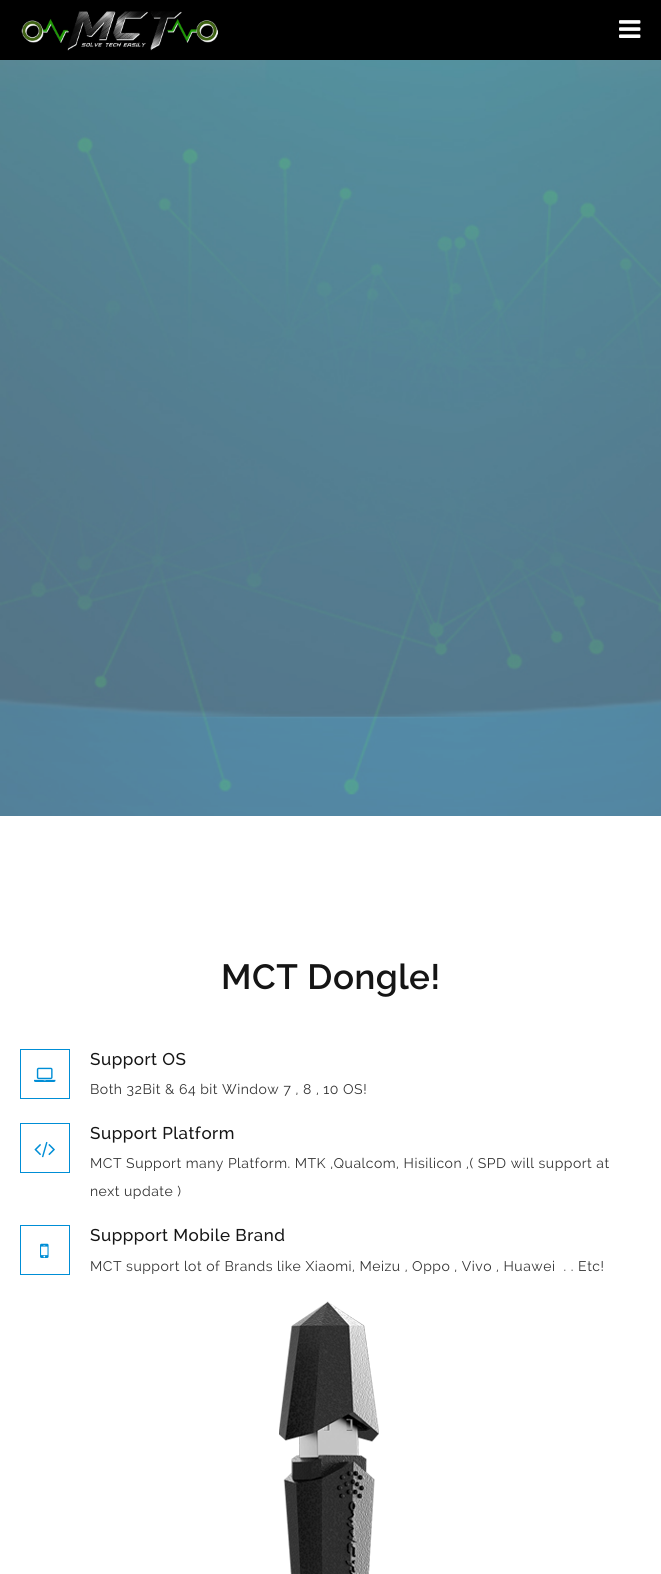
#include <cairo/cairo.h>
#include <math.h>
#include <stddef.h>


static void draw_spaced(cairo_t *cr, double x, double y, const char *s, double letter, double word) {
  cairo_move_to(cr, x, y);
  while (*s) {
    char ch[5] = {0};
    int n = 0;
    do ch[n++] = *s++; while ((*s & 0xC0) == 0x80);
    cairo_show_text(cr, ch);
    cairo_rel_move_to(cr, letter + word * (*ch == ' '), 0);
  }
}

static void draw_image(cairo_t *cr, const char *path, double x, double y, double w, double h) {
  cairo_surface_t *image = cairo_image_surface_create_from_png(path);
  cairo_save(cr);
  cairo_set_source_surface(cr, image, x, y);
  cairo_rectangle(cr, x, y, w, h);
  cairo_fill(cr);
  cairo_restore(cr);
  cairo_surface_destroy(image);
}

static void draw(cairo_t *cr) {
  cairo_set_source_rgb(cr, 1, 1, 1);
  cairo_paint(cr);
  cairo_set_source_rgb(cr, 0, 0, 0);
  cairo_rectangle(cr, 0, 0, 661, 60);
  cairo_fill(cr);
  draw_image(cr, "images/1.png", 21, 11, 197, 40);
  draw_image(cr, "images/2.png", 619, 20, 22, 18);
  draw_image(cr, "images/3.png", 0, 60, 661, 756);
  cairo_rectangle(cr, 20.5, 1049.5, 49, 49);
  cairo_set_source_rgb(cr, 0, 142 / 255.0, 214 / 255.0);
  cairo_set_line_width(cr, 1);
  cairo_stroke(cr);
  draw_image(cr, "images/4.png", 34, 1067, 22, 15);
  cairo_rectangle(cr, 20.5, 1123.5, 49, 49);
  cairo_stroke(cr);
  draw_image(cr, "images/5.png", 34, 1141, 21, 17);
  cairo_rectangle(cr, 20.5, 1225.5, 49, 49);
  cairo_stroke(cr);
  draw_image(cr, "images/6.png", 40, 1243, 9, 15);
  draw_image(cr, "images/7.png", 279, 1301, 100, 273);
  cairo_select_font_face(cr, "Raleway SemiBold", CAIRO_FONT_SLANT_NORMAL, CAIRO_FONT_WEIGHT_NORMAL);
  cairo_set_font_size(cr, 35);
  cairo_set_source_rgb(cr, 21 / 255.0, 21 / 255.0, 21 / 255.0);
  draw_spaced(cr, 221, 989, "MCT Dongle!", 0.5, 0);
  cairo_select_font_face(cr, "Raleway Medium", CAIRO_FONT_SLANT_NORMAL, CAIRO_FONT_WEIGHT_NORMAL);
  cairo_set_font_size(cr, 17);
  draw_spaced(cr, 90, 1065, "Support OS", 0.5, 0);
  cairo_select_font_face(cr, "Raleway", CAIRO_FONT_SLANT_NORMAL, CAIRO_FONT_WEIGHT_NORMAL);
  cairo_set_font_size(cr, 14);
  cairo_set_source_rgb(cr, 51 / 255.0, 51 / 255.0, 51 / 255.0);
  draw_spaced(cr, 90, 1094, "Both 32Bit & 64 bit Window 7 , 8 , 10 OS!", 0.5, 0);
  cairo_select_font_face(cr, "Raleway Medium", CAIRO_FONT_SLANT_NORMAL, CAIRO_FONT_WEIGHT_NORMAL);
  cairo_set_font_size(cr, 17);
  cairo_set_source_rgb(cr, 21 / 255.0, 21 / 255.0, 21 / 255.0);
  draw_spaced(cr, 90, 1139, "Support Platform", 0.5, 0);
  cairo_select_font_face(cr, "Raleway", CAIRO_FONT_SLANT_NORMAL, CAIRO_FONT_WEIGHT_NORMAL);
  cairo_set_font_size(cr, 14);
  cairo_set_source_rgb(cr, 51 / 255.0, 51 / 255.0, 51 / 255.0);
  draw_spaced(cr, 90, 1168, "MCT Support many Platform. MTK ,Qualcom, Hisilicon ,( SPD will support at", 0.5, 0);
  draw_spaced(cr, 90, 1196, "next update )", 0.5, 0);
  cairo_select_font_face(cr, "Raleway Medium", CAIRO_FONT_SLANT_NORMAL, CAIRO_FONT_WEIGHT_NORMAL);
  cairo_set_font_size(cr, 17);
  cairo_set_source_rgb(cr, 21 / 255.0, 21 / 255.0, 21 / 255.0);
  draw_spaced(cr, 90, 1241, "Suppport Mobile Brand", 0.5, 0);
  cairo_select_font_face(cr, "Raleway", CAIRO_FONT_SLANT_NORMAL, CAIRO_FONT_WEIGHT_NORMAL);
  cairo_set_font_size(cr, 14);
  cairo_set_source_rgb(cr, 51 / 255.0, 51 / 255.0, 51 / 255.0);
  draw_spaced(cr, 90, 1271, "MCT support lot of Brands like Xiaomi, Meizu , Oppo , Vivo , Huawei  . . Etc!", 0.5, 0);
}

int main(void) {
  cairo_surface_t *surface = cairo_image_surface_create(CAIRO_FORMAT_RGB24, 661, 1574);
  cairo_t *cr = cairo_create(surface);
  cairo_font_options_t *options = cairo_font_options_create();
  cairo_font_options_set_hint_metrics(options, CAIRO_HINT_METRICS_OFF);
  cairo_font_options_set_hint_style(options, CAIRO_HINT_STYLE_NONE);
  cairo_set_font_options(cr, options);
  cairo_set_miter_limit(cr, 4);
  draw(cr);
  cairo_surface_write_to_png(surface, "out.png");
  cairo_font_options_destroy(options);
  cairo_destroy(cr);
  cairo_surface_destroy(surface);
  return 0;
}
